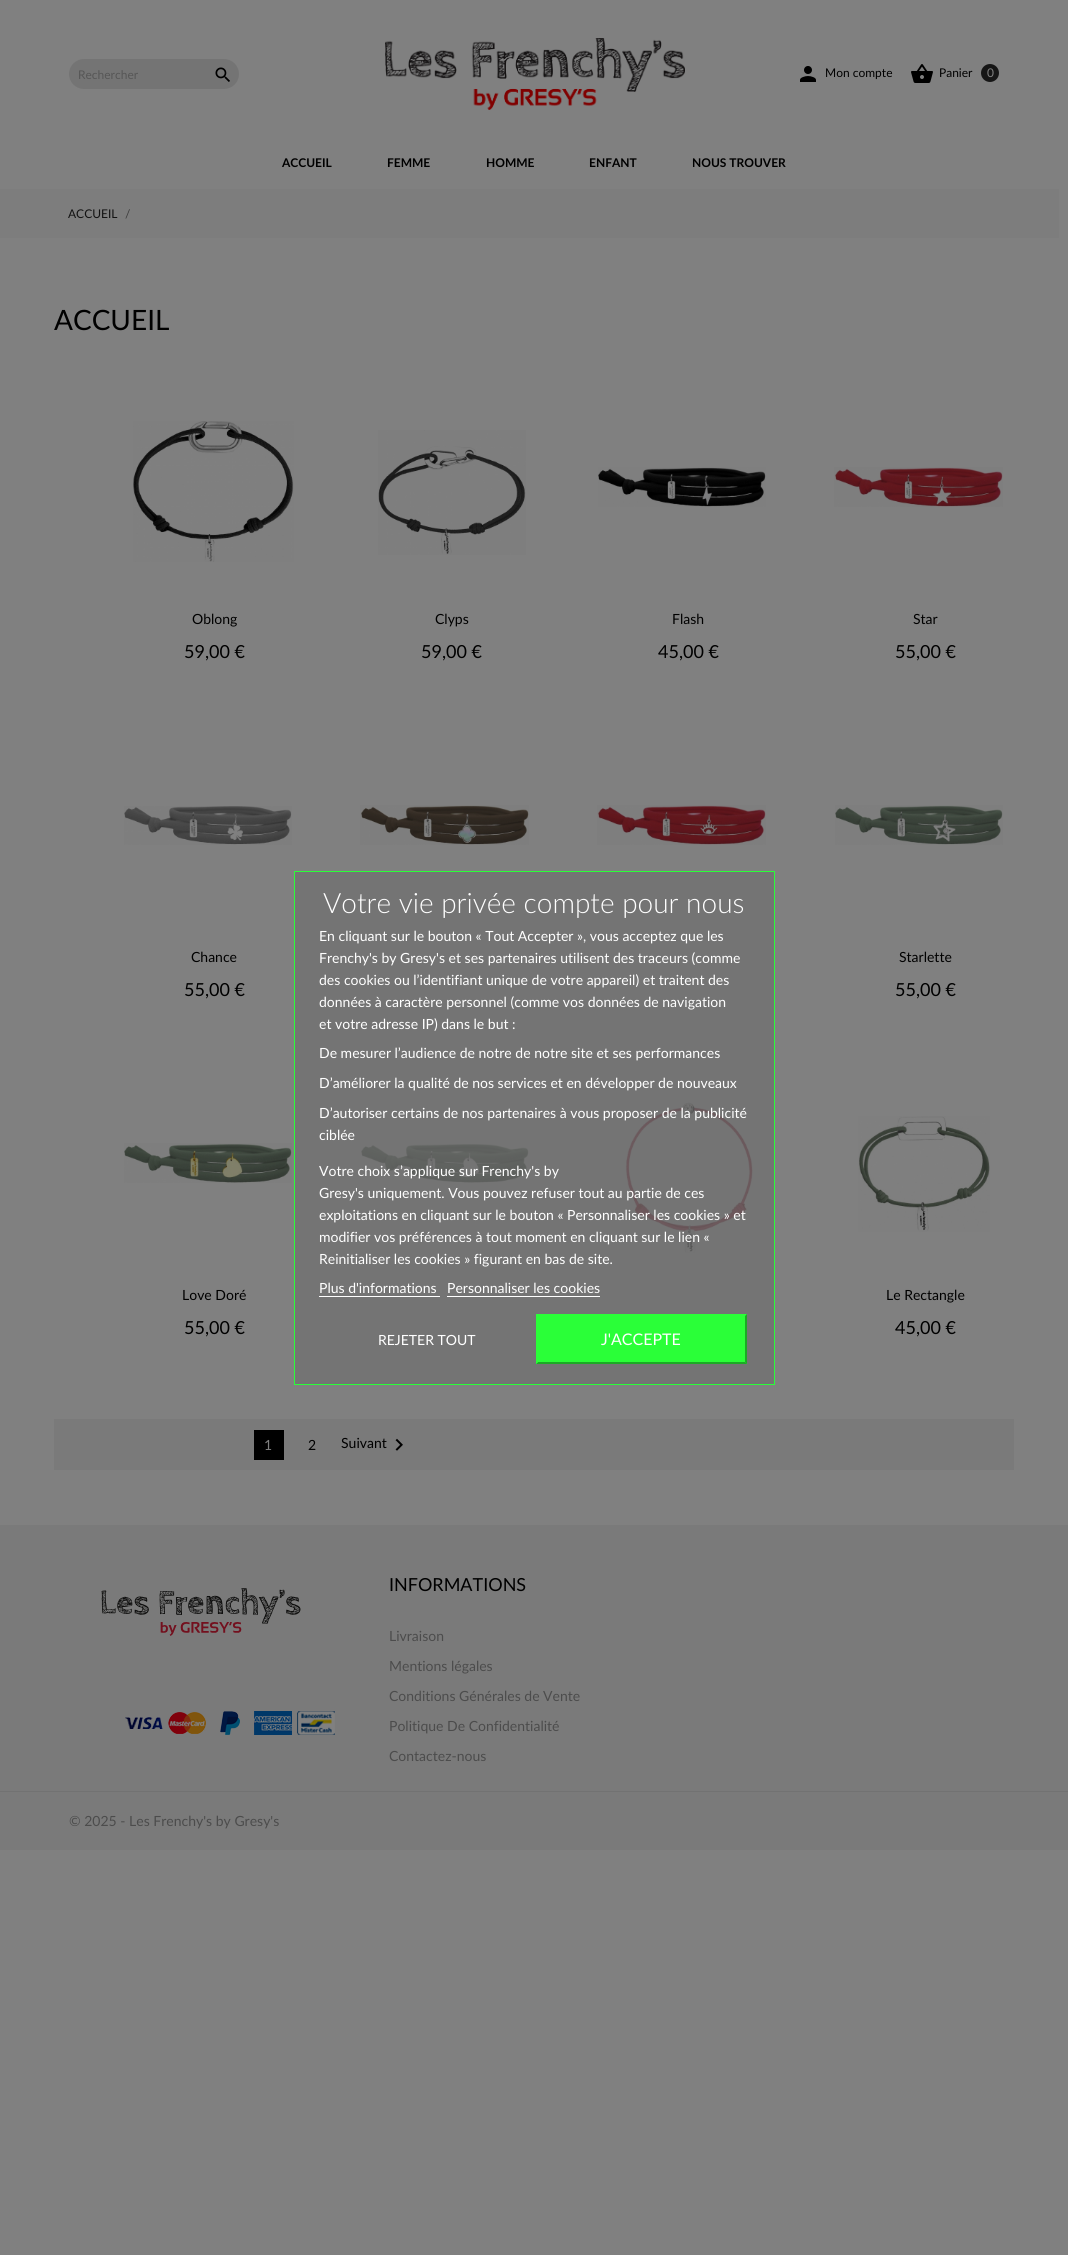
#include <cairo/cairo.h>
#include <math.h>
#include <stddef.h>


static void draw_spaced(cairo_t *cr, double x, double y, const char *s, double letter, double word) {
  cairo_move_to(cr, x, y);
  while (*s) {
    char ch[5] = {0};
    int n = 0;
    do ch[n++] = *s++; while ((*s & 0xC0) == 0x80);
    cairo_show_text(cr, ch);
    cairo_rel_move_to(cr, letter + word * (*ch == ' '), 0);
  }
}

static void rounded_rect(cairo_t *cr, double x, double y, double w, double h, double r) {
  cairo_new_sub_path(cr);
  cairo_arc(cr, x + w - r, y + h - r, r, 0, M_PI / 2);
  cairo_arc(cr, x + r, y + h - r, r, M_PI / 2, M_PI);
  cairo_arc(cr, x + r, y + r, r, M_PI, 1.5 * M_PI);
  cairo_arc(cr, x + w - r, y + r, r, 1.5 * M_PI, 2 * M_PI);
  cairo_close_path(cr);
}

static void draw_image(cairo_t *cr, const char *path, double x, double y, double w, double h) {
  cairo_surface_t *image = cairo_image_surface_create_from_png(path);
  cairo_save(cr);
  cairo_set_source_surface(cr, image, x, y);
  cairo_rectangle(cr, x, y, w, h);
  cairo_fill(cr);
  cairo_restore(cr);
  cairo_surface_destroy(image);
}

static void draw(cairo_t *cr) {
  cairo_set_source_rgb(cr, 128 / 255.0, 128 / 255.0, 128 / 255.0);
  cairo_paint(cr);
  cairo_set_source_rgb(cr, 116 / 255.0, 116 / 255.0, 116 / 255.0);
  rounded_rect(cr, 69, 59, 170, 30, 15);
  cairo_fill(cr);
  draw_image(cr, "images/1.png", 215, 67, 15, 15);
  draw_image(cr, "images/2.png", 385, 38, 300, 72);
  draw_image(cr, "images/3.png", 800, 66, 16, 16);
  draw_image(cr, "images/4.png", 911, 64, 22, 19);
  cairo_set_source_rgb(cr, 22 / 255.0, 22 / 255.0, 22 / 255.0);
  cairo_arc(cr, 990, 73, 9, 0, 2 * M_PI);
  cairo_fill(cr);
  cairo_set_source_rgb(cr, 125 / 255.0, 125 / 255.0, 125 / 255.0);
  cairo_rectangle(cr, 0, 189, 1059, 49);
  cairo_fill(cr);
  draw_image(cr, "images/5.png", 133, 421, 161, 141);
  draw_image(cr, "images/6.png", 378, 430, 148, 125);
  draw_image(cr, "images/7.png", 598, 467, 168, 40);
  draw_image(cr, "images/8.png", 834, 467, 169, 40);
  draw_image(cr, "images/9.png", 360, 805, 169, 40);
  draw_image(cr, "images/10.png", 597, 805, 169, 40);
  draw_image(cr, "images/11.png", 124, 806, 168, 39);
  draw_image(cr, "images/12.png", 835, 805, 168, 40);
  draw_image(cr, "images/13.png", 361, 1143, 168, 40);
  draw_image(cr, "images/14.png", 625, 1102, 128, 151);
  draw_image(cr, "images/15.png", 124, 1143, 168, 40);
  draw_image(cr, "images/16.png", 858, 1116, 132, 116);
  cairo_set_source_rgb(cr, 122 / 255.0, 122 / 255.0, 122 / 255.0);
  cairo_rectangle(cr, 54, 1419, 960, 51);
  cairo_fill(cr);
  cairo_set_source_rgb(cr, 0, 0, 0);
  cairo_rectangle(cr, 254, 1430, 30, 30);
  cairo_fill(cr);
  draw_image(cr, "images/17.png", 395, 1438, 8, 13);
  cairo_set_source_rgb(cr, 122 / 255.0, 122 / 255.0, 122 / 255.0);
  cairo_rectangle(cr, 0, 1525, 1068, 325);
  cairo_fill(cr);
  draw_image(cr, "images/18.png", 101, 1588, 200, 48);
  draw_image(cr, "images/19.png", 125, 1717, 38, 12);
  draw_image(cr, "images/20.png", 168, 1712, 38, 22);
  draw_image(cr, "images/21.png", 220, 1711, 20, 24);
  draw_image(cr, "images/22.png", 254, 1711, 38, 24);
  draw_image(cr, "images/23.png", 297, 1711, 38, 24);
  cairo_set_source_rgba(cr, 112 / 255.0, 112 / 255.0, 112 / 255.0, 0.7);
  cairo_rectangle(cr, 294.5, 871.5, 480, 513);
  cairo_fill_preserve(cr);
  cairo_set_source_rgb(cr, 42 / 255.0, 1, 56 / 255.0);
  cairo_set_line_width(cr, 1);
  cairo_stroke(cr);
  cairo_set_source_rgb(cr, 1, 1, 1);
  cairo_rectangle(cr, 319, 1296, 121, 1);
  cairo_fill(cr);
  cairo_rectangle(cr, 447, 1296, 153, 1);
  cairo_fill(cr);
  cairo_set_source_rgb(cr, 42 / 255.0, 1, 56 / 255.0);
  cairo_rectangle(cr, 536, 1314, 211, 50);
  cairo_fill(cr);
  cairo_set_source_rgb(cr, 28 / 255.0, 170 / 255.0, 37 / 255.0);
  cairo_new_path(cr);
  cairo_move_to(cr, 747, 1314);
  cairo_line_to(cr, 747, 1364);
  cairo_line_to(cr, 745, 1362);
  cairo_line_to(cr, 745, 1316);
  cairo_close_path(cr);
  cairo_fill(cr);
  cairo_new_path(cr);
  cairo_move_to(cr, 747, 1364);
  cairo_line_to(cr, 536, 1364);
  cairo_line_to(cr, 538, 1362);
  cairo_line_to(cr, 745, 1362);
  cairo_close_path(cr);
  cairo_fill(cr);
  cairo_set_source_rgb(cr, 42 / 255.0, 1, 56 / 255.0);
  cairo_new_path(cr);
  cairo_move_to(cr, 536, 1364);
  cairo_line_to(cr, 536, 1314);
  cairo_line_to(cr, 538, 1316);
  cairo_line_to(cr, 538, 1362);
  cairo_close_path(cr);
  cairo_fill(cr);
  cairo_set_source_rgb(cr, 114 / 255.0, 114 / 255.0, 114 / 255.0);
  cairo_rectangle(cr, 0, 1791, 1068, 1);
  cairo_fill(cr);
  cairo_select_font_face(cr, "Lato", CAIRO_FONT_SLANT_NORMAL, CAIRO_FONT_WEIGHT_NORMAL);
  cairo_set_font_size(cr, 12);
  cairo_set_source_rgb(cr, 86 / 255.0, 86 / 255.0, 86 / 255.0);
  cairo_move_to(cr, 78, 79);
  cairo_show_text(cr, "Rechercher");
  cairo_set_source_rgb(cr, 0, 0, 0);
  cairo_move_to(cr, 825, 77);
  cairo_show_text(cr, "Mon compte");
  cairo_move_to(cr, 939, 77);
  cairo_show_text(cr, "Panier");
  cairo_set_source_rgb(cr, 128 / 255.0, 128 / 255.0, 128 / 255.0);
  cairo_move_to(cr, 987, 77);
  cairo_show_text(cr, "0");
  cairo_select_font_face(cr, "Lato", CAIRO_FONT_SLANT_NORMAL, CAIRO_FONT_WEIGHT_BOLD);
  cairo_set_source_rgb(cr, 0, 0, 0);
  cairo_move_to(cr, 282, 167);
  cairo_show_text(cr, "ACCUEIL");
  cairo_move_to(cr, 387, 167);
  cairo_show_text(cr, "FEMME");
  cairo_move_to(cr, 486, 167);
  cairo_show_text(cr, "HOMME");
  cairo_move_to(cr, 589, 167);
  cairo_show_text(cr, "ENFANT");
  cairo_move_to(cr, 692, 167);
  cairo_show_text(cr, "NOUS TROUVER");
  cairo_select_font_face(cr, "Lato", CAIRO_FONT_SLANT_NORMAL, CAIRO_FONT_WEIGHT_NORMAL);
  cairo_set_source_rgb(cr, 18 / 255.0, 18 / 255.0, 18 / 255.0);
  cairo_move_to(cr, 68, 218);
  cairo_show_text(cr, "ACCUEIL");
  cairo_set_source_rgb(cr, 61 / 255.0, 61 / 255.0, 61 / 255.0);
  cairo_move_to(cr, 125, 218);
  cairo_show_text(cr, "/");
  cairo_set_font_size(cr, 28);
  cairo_set_source_rgb(cr, 0, 0, 0);
  cairo_move_to(cr, 54, 330);
  cairo_show_text(cr, "ACCUEIL");
  cairo_set_font_size(cr, 14);
  cairo_move_to(cr, 192, 624);
  cairo_show_text(cr, "Oblong");
  cairo_set_font_size(cr, 18);
  cairo_move_to(cr, 184, 658);
  cairo_show_text(cr, "59,00 €");
  cairo_set_font_size(cr, 14);
  cairo_move_to(cr, 435, 624);
  cairo_show_text(cr, "Clyps");
  cairo_set_font_size(cr, 18);
  cairo_move_to(cr, 421, 658);
  cairo_show_text(cr, "59,00 €");
  cairo_set_font_size(cr, 14);
  cairo_move_to(cr, 672, 624);
  cairo_show_text(cr, "Flash");
  cairo_set_font_size(cr, 18);
  cairo_move_to(cr, 658, 658);
  cairo_show_text(cr, "45,00 €");
  cairo_set_font_size(cr, 14);
  cairo_move_to(cr, 913, 624);
  cairo_show_text(cr, "Star");
  cairo_set_font_size(cr, 18);
  cairo_move_to(cr, 895, 658);
  cairo_show_text(cr, "55,00 €");
  cairo_set_font_size(cr, 14);
  cairo_move_to(cr, 191, 962);
  cairo_show_text(cr, "Chance");
  cairo_set_font_size(cr, 18);
  cairo_move_to(cr, 184, 996);
  cairo_show_text(cr, "55,00 €");
  cairo_set_font_size(cr, 14);
  cairo_move_to(cr, 899, 962);
  cairo_show_text(cr, "Starlette");
  cairo_set_font_size(cr, 18);
  cairo_move_to(cr, 895, 996);
  cairo_show_text(cr, "55,00 €");
  cairo_set_font_size(cr, 14);
  cairo_move_to(cr, 182, 1300);
  cairo_show_text(cr, "Love Doré");
  cairo_set_font_size(cr, 18);
  cairo_move_to(cr, 184, 1334);
  cairo_show_text(cr, "55,00 €");
  cairo_set_font_size(cr, 14);
  cairo_move_to(cr, 886, 1300);
  cairo_show_text(cr, "Le Rectangle");
  cairo_set_font_size(cr, 18);
  cairo_move_to(cr, 895, 1334);
  cairo_show_text(cr, "45,00 €");
  cairo_set_font_size(cr, 14);
  cairo_set_source_rgb(cr, 128 / 255.0, 128 / 255.0, 128 / 255.0);
  draw_spaced(cr, 264, 1450, "1", 2, 0);
  cairo_set_source_rgb(cr, 0, 0, 0);
  draw_spaced(cr, 308, 1450, "2", 2, 0);
  cairo_move_to(cr, 341, 1448);
  cairo_show_text(cr, "Suivant");
  cairo_select_font_face(cr, "Lato Light", CAIRO_FONT_SLANT_NORMAL, CAIRO_FONT_WEIGHT_NORMAL);
  cairo_set_font_size(cr, 28);
  cairo_set_source_rgb(cr, 1, 1, 1);
  cairo_move_to(cr, 323, 913);
  cairo_show_text(cr, "Votre vie privée compte pour nous");
  cairo_select_font_face(cr, "Lato", CAIRO_FONT_SLANT_NORMAL, CAIRO_FONT_WEIGHT_NORMAL);
  cairo_set_font_size(cr, 14);
  cairo_move_to(cr, 319, 941);
  cairo_show_text(cr, "En cliquant sur le bouton « Tout Accepter », vous acceptez que les");
  cairo_move_to(cr, 319, 963);
  cairo_show_text(cr, "Frenchy's by Gresy's et ses partenaires utilisent des traceurs (comme");
  cairo_move_to(cr, 319, 985);
  cairo_show_text(cr, "des cookies ou l’identifiant unique de votre appareil) et traitent des");
  cairo_move_to(cr, 319, 1007);
  cairo_show_text(cr, "données à caractère personnel (comme vos données de navigation");
  cairo_move_to(cr, 319, 1029);
  cairo_show_text(cr, "et votre adresse IP) dans le but :");
  cairo_move_to(cr, 319, 1058);
  cairo_show_text(cr, "De mesurer l’audience de notre de notre site et ses performances");
  cairo_move_to(cr, 319, 1088);
  cairo_show_text(cr, "D’améliorer la qualité de nos services et en développer de nouveaux");
  cairo_move_to(cr, 319, 1118);
  cairo_show_text(cr, "D’autoriser certains de nos partenaires à vous proposer de la publicité");
  cairo_move_to(cr, 319, 1140);
  cairo_show_text(cr, "ciblée");
  cairo_move_to(cr, 319, 1176);
  cairo_show_text(cr, "Votre choix s’applique sur Frenchy's by");
  cairo_move_to(cr, 319, 1198);
  cairo_show_text(cr, "Gresy's uniquement. Vous pouvez refuser tout au partie de ces");
  cairo_move_to(cr, 319, 1220);
  cairo_show_text(cr, "exploitations en cliquant sur le bouton « Personnaliser les cookies » et");
  cairo_move_to(cr, 319, 1242);
  cairo_show_text(cr, "modifier vos préférences à tout moment en cliquant sur le lien «");
  cairo_move_to(cr, 319, 1264);
  cairo_show_text(cr, "Reinitialiser les cookies » figurant en bas de site.");
  cairo_move_to(cr, 319, 1293);
  cairo_show_text(cr, "Plus d'informations");
  cairo_move_to(cr, 447, 1293);
  cairo_show_text(cr, "Personnaliser les cookies");
  cairo_move_to(cr, 378, 1345);
  cairo_show_text(cr, "REJETER TOUT");
  cairo_set_font_size(cr, 16);
  cairo_move_to(cr, 601, 1345);
  cairo_show_text(cr, "J'ACCEPTE");
  cairo_set_font_size(cr, 18);
  cairo_set_source_rgb(cr, 0, 0, 0);
  cairo_move_to(cr, 389, 1591);
  cairo_show_text(cr, "INFORMATIONS");
  cairo_set_font_size(cr, 14);
  cairo_set_source_rgb(cr, 76 / 255.0, 76 / 255.0, 76 / 255.0);
  cairo_move_to(cr, 389, 1641);
  cairo_show_text(cr, "Livraison");
  cairo_move_to(cr, 389, 1671);
  cairo_show_text(cr, "Mentions légales");
  cairo_move_to(cr, 389, 1701);
  cairo_show_text(cr, "Conditions Générales de Vente");
  cairo_move_to(cr, 389, 1731);
  cairo_show_text(cr, "Politique De Confidentialité");
  cairo_move_to(cr, 389, 1761);
  cairo_show_text(cr, "Contactez-nous");
  cairo_move_to(cr, 69, 1826);
  cairo_show_text(cr, "© 2025 - Les Frenchy's by Gresy's");
}

int main(void) {
  cairo_surface_t *surface = cairo_image_surface_create(CAIRO_FORMAT_RGB24, 1068, 2255);
  cairo_t *cr = cairo_create(surface);
  cairo_font_options_t *options = cairo_font_options_create();
  cairo_font_options_set_hint_metrics(options, CAIRO_HINT_METRICS_OFF);
  cairo_font_options_set_hint_style(options, CAIRO_HINT_STYLE_NONE);
  cairo_set_font_options(cr, options);
  cairo_set_miter_limit(cr, 4);
  draw(cr);
  cairo_surface_write_to_png(surface, "out.png");
  cairo_font_options_destroy(options);
  cairo_destroy(cr);
  cairo_surface_destroy(surface);
  return 0;
}
